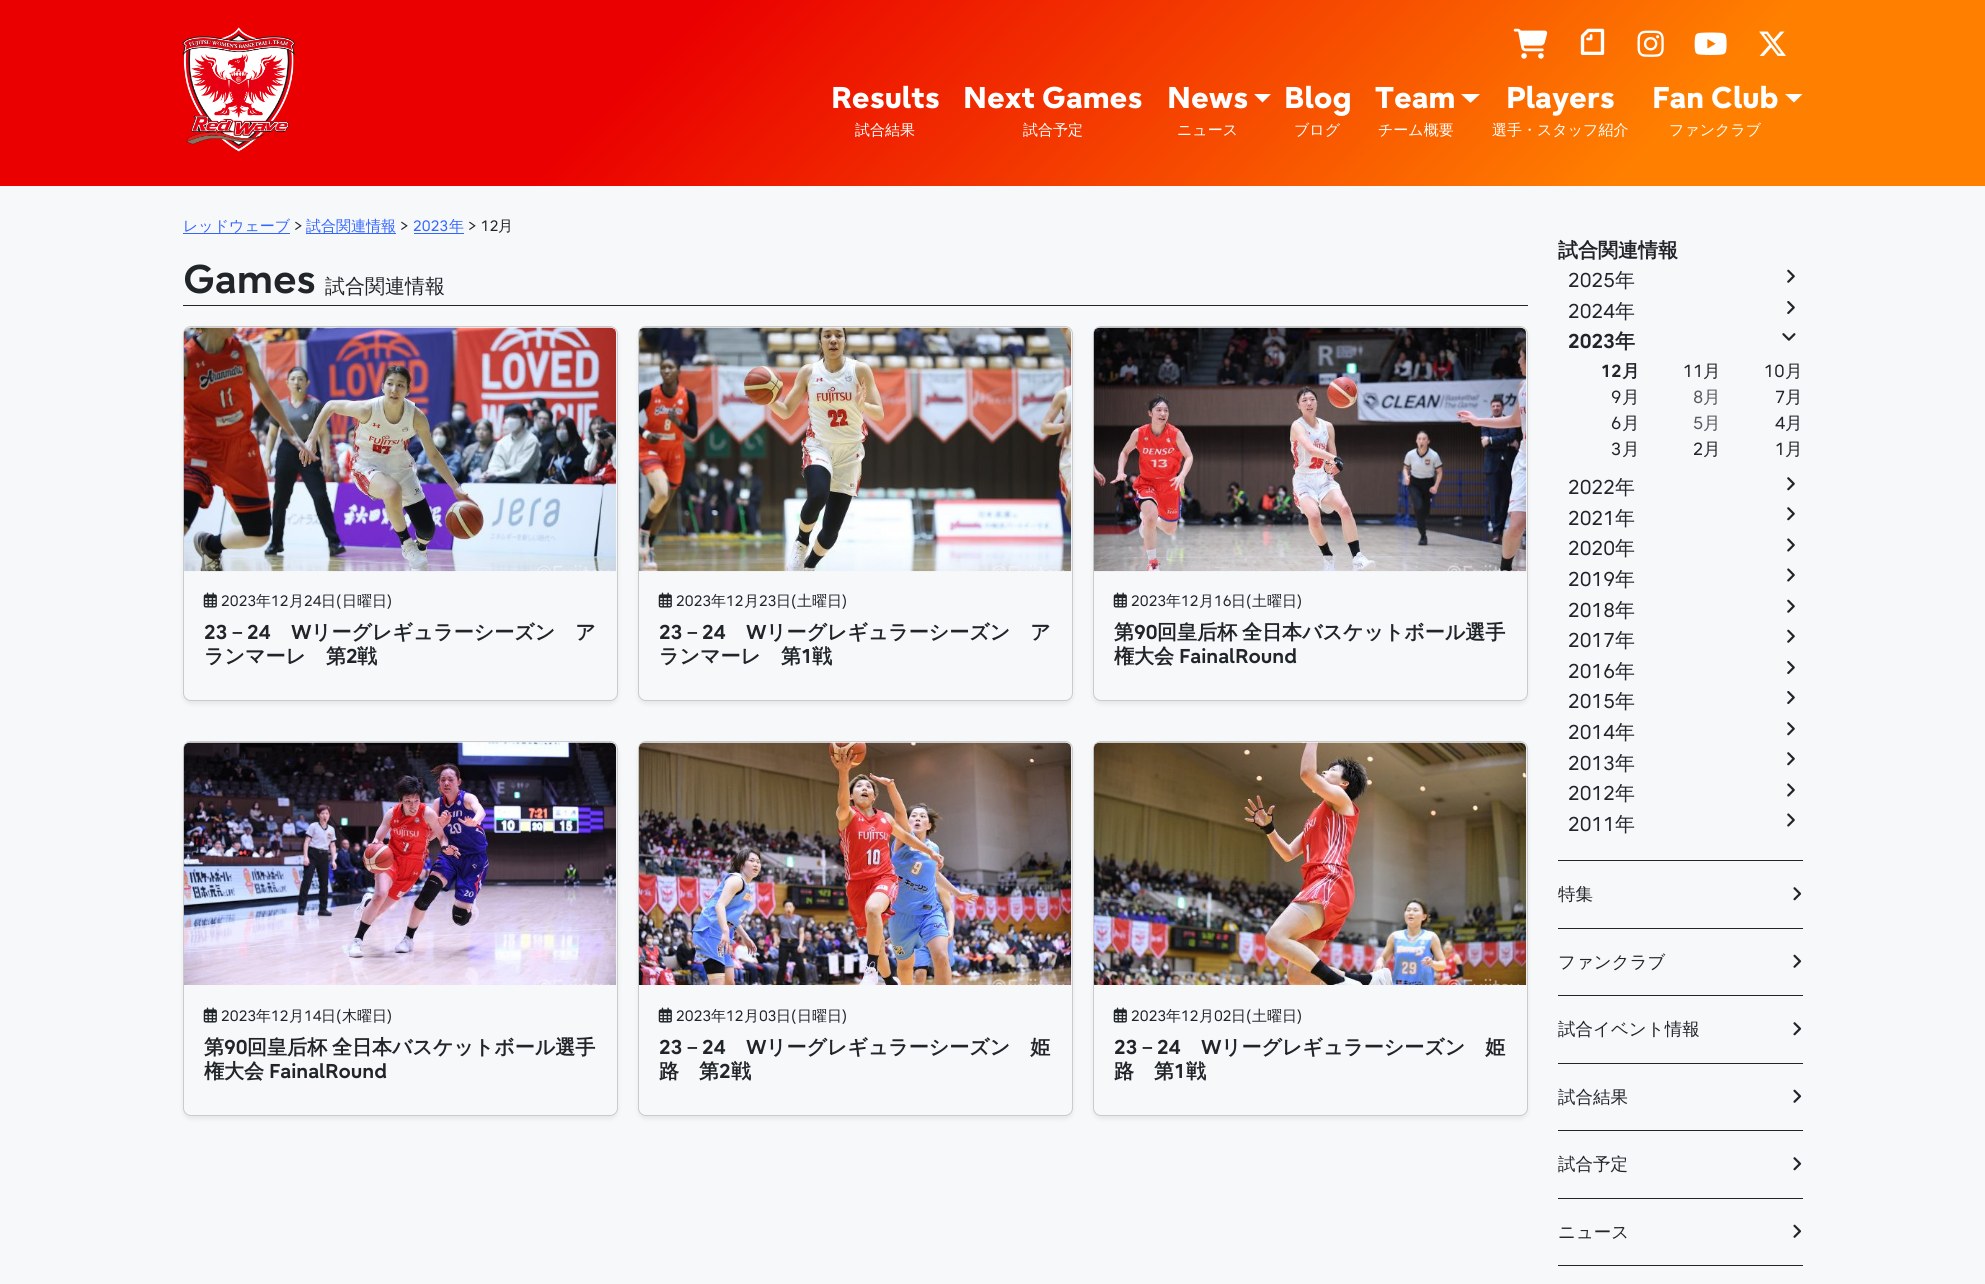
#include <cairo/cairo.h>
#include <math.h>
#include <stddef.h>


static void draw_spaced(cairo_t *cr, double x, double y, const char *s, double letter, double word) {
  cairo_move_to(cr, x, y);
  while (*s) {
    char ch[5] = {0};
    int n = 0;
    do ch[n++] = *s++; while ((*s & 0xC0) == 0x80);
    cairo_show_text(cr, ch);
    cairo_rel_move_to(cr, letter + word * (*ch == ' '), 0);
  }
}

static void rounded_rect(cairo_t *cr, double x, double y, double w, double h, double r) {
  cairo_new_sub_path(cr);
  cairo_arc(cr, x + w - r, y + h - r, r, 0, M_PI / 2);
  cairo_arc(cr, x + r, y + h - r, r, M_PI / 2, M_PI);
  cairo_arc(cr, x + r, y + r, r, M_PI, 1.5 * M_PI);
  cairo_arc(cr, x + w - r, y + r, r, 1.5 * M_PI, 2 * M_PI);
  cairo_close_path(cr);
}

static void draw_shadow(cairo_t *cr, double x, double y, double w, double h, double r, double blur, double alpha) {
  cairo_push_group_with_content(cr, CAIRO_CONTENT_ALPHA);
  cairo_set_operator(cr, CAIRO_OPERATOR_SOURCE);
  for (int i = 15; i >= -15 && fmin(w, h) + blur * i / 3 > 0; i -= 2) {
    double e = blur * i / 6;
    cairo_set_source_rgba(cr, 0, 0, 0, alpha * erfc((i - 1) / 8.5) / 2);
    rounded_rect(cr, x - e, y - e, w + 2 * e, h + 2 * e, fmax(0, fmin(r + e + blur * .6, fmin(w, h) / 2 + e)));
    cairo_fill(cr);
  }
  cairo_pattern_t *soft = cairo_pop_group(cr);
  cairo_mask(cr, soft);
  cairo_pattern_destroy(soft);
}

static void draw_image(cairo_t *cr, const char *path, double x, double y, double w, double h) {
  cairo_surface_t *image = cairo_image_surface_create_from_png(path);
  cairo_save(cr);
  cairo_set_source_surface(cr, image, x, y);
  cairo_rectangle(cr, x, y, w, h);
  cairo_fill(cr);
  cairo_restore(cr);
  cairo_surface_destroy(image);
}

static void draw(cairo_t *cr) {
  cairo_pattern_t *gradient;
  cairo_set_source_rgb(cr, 247 / 255.0, 248 / 255.0, 250 / 255.0);
  cairo_paint(cr);
  gradient = cairo_pattern_create_linear(450, -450, 1535, 636);
  cairo_pattern_add_color_stop_rgba(gradient, 0.33, 234 / 255.0, 0, 0, 1);
  cairo_pattern_add_color_stop_rgba(gradient, 0.83, 1, 128 / 255.0, 0, 1);
  cairo_set_source(cr, gradient);
  cairo_pattern_destroy(gradient);
  cairo_rectangle(cr, 0, 0, 1985, 186);
  cairo_fill(cr);
  draw_image(cr, "images/1.png", 182, 27, 113, 125);
  draw_image(cr, "images/2.png", 1513, 28, 35, 31);
  draw_image(cr, "images/3.png", 1580, 28, 25, 27);
  draw_image(cr, "images/4.png", 1637, 30, 27, 27);
  draw_image(cr, "images/5.png", 1694, 32, 33, 23);
  draw_image(cr, "images/6.png", 1759, 31, 27, 25);
  cairo_set_source_rgb(cr, 1, 1, 1);
  cairo_new_path(cr);
  cairo_move_to(cr, 1254, 94);
  cairo_line_to(cr, 1271, 94);
  cairo_line_to(cr, 1262.5, 102.5);
  cairo_close_path(cr);
  cairo_fill(cr);
  cairo_new_path(cr);
  cairo_move_to(cr, 1461, 94);
  cairo_line_to(cr, 1480, 94);
  cairo_line_to(cr, 1471, 102.5);
  cairo_line_to(cr, 1470, 102.5);
  cairo_close_path(cr);
  cairo_fill(cr);
  cairo_new_path(cr);
  cairo_move_to(cr, 1785, 94);
  cairo_line_to(cr, 1802.5, 94);
  cairo_line_to(cr, 1794, 102.5);
  cairo_close_path(cr);
  cairo_fill(cr);
  cairo_set_source_rgb(cr, 51 / 255.0, 102 / 255.0, 1);
  cairo_rectangle(cr, 183, 233, 107, 1);
  cairo_fill(cr);
  cairo_rectangle(cr, 306, 233, 90, 1);
  cairo_fill(cr);
  cairo_rectangle(cr, 414, 233, 50, 1);
  cairo_fill(cr);
  cairo_set_source_rgb(cr, 33 / 255.0, 37 / 255.0, 41 / 255.0);
  cairo_rectangle(cr, 183, 305, 1345, 1);
  cairo_fill(cr);
  cairo_set_source_rgb(cr, 0, 0, 0);
  draw_shadow(cr, 183, 329, 435, 375, 8, 2.5, 0.07);
  cairo_set_source_rgb(cr, 247 / 255.0, 248 / 255.0, 250 / 255.0);
  rounded_rect(cr, 183, 326, 435, 375, 8);
  cairo_fill(cr);
  rounded_rect(cr, 183.5, 326.5, 434, 374, 7.5);
  cairo_set_source_rgba(cr, 0, 0, 0, 0.18);
  cairo_set_line_width(cr, 1);
  cairo_stroke(cr);
  draw_image(cr, "images/7.png", 183, 327, 434, 245);
  draw_image(cr, "images/8.png", 203, 592, 14, 16);
  cairo_set_source_rgb(cr, 0, 0, 0);
  draw_shadow(cr, 638, 329, 435, 375, 8, 2.5, 0.07);
  cairo_set_source_rgb(cr, 247 / 255.0, 248 / 255.0, 250 / 255.0);
  rounded_rect(cr, 638, 326, 435, 375, 8);
  cairo_fill(cr);
  rounded_rect(cr, 638.5, 326.5, 434, 374, 7.5);
  cairo_set_source_rgba(cr, 0, 0, 0, 0.18);
  cairo_stroke(cr);
  draw_image(cr, "images/9.png", 638, 327, 434, 245);
  draw_image(cr, "images/8.png", 658, 592, 14, 16);
  cairo_set_source_rgb(cr, 0, 0, 0);
  draw_shadow(cr, 1093, 329, 435, 375, 8, 2.5, 0.07);
  cairo_set_source_rgb(cr, 247 / 255.0, 248 / 255.0, 250 / 255.0);
  rounded_rect(cr, 1093, 326, 435, 375, 8);
  cairo_fill(cr);
  rounded_rect(cr, 1093.5, 326.5, 434, 374, 7.5);
  cairo_set_source_rgba(cr, 0, 0, 0, 0.18);
  cairo_stroke(cr);
  draw_image(cr, "images/10.png", 1093, 327, 434, 245);
  draw_image(cr, "images/8.png", 1113, 592, 14, 16);
  cairo_set_source_rgb(cr, 0, 0, 0);
  draw_shadow(cr, 183, 744, 435, 375, 8, 2.5, 0.07);
  cairo_set_source_rgb(cr, 247 / 255.0, 248 / 255.0, 250 / 255.0);
  rounded_rect(cr, 183, 741, 435, 375, 8);
  cairo_fill(cr);
  rounded_rect(cr, 183.5, 741.5, 434, 374, 7.5);
  cairo_set_source_rgba(cr, 0, 0, 0, 0.18);
  cairo_stroke(cr);
  draw_image(cr, "images/11.png", 183, 742, 434, 243);
  draw_image(cr, "images/8.png", 203, 1007, 14, 16);
  cairo_set_source_rgb(cr, 0, 0, 0);
  draw_shadow(cr, 638, 744, 435, 375, 8, 2.5, 0.07);
  cairo_set_source_rgb(cr, 247 / 255.0, 248 / 255.0, 250 / 255.0);
  rounded_rect(cr, 638, 741, 435, 375, 8);
  cairo_fill(cr);
  rounded_rect(cr, 638.5, 741.5, 434, 374, 7.5);
  cairo_set_source_rgba(cr, 0, 0, 0, 0.18);
  cairo_stroke(cr);
  draw_image(cr, "images/12.png", 638, 742, 434, 243);
  draw_image(cr, "images/8.png", 658, 1007, 14, 16);
  cairo_set_source_rgb(cr, 0, 0, 0);
  draw_shadow(cr, 1093, 744, 435, 375, 8, 2.5, 0.07);
  cairo_set_source_rgb(cr, 247 / 255.0, 248 / 255.0, 250 / 255.0);
  rounded_rect(cr, 1093, 741, 435, 375, 8);
  cairo_fill(cr);
  rounded_rect(cr, 1093.5, 741.5, 434, 374, 7.5);
  cairo_set_source_rgba(cr, 0, 0, 0, 0.18);
  cairo_stroke(cr);
  draw_image(cr, "images/13.png", 1093, 742, 434, 243);
  draw_image(cr, "images/8.png", 1113, 1007, 14, 16);
  draw_image(cr, "images/14.png", 1787, 269, 8, 14);
  draw_image(cr, "images/15.png", 1787, 300, 8, 14);
  draw_image(cr, "images/16.png", 1782, 333, 14, 8);
  draw_image(cr, "images/17.png", 1787, 477, 8, 14);
  draw_image(cr, "images/17.png", 1787, 507, 8, 14);
  draw_image(cr, "images/18.png", 1787, 538, 8, 14);
  draw_image(cr, "images/18.png", 1787, 568, 8, 14);
  draw_image(cr, "images/14.png", 1787, 599, 8, 14);
  draw_image(cr, "images/14.png", 1787, 629, 8, 14);
  draw_image(cr, "images/15.png", 1787, 660, 8, 14);
  draw_image(cr, "images/15.png", 1787, 690, 8, 14);
  draw_image(cr, "images/17.png", 1787, 722, 8, 14);
  draw_image(cr, "images/17.png", 1787, 752, 8, 14);
  draw_image(cr, "images/18.png", 1787, 783, 8, 14);
  draw_image(cr, "images/18.png", 1787, 813, 8, 14);
  cairo_set_source_rgb(cr, 33 / 255.0, 37 / 255.0, 41 / 255.0);
  cairo_rectangle(cr, 1558, 860, 245, 1);
  cairo_fill(cr);
  draw_image(cr, "images/19.png", 1793, 887, 9, 14);
  cairo_rectangle(cr, 1558, 928, 245, 1);
  cairo_fill(cr);
  draw_image(cr, "images/20.png", 1793, 954, 9, 14);
  cairo_rectangle(cr, 1558, 995, 245, 1);
  cairo_fill(cr);
  draw_image(cr, "images/19.png", 1793, 1022, 9, 14);
  cairo_rectangle(cr, 1558, 1063, 245, 1);
  cairo_fill(cr);
  draw_image(cr, "images/20.png", 1793, 1089, 9, 14);
  cairo_rectangle(cr, 1558, 1130, 245, 1);
  cairo_fill(cr);
  draw_image(cr, "images/19.png", 1793, 1157, 9, 14);
  cairo_rectangle(cr, 1558, 1198, 245, 1);
  cairo_fill(cr);
  draw_image(cr, "images/20.png", 1793, 1224, 9, 14);
  cairo_rectangle(cr, 1558, 1265, 245, 1);
  cairo_fill(cr);
  cairo_select_font_face(cr, "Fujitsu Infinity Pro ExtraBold", CAIRO_FONT_SLANT_NORMAL, CAIRO_FONT_WEIGHT_NORMAL);
  cairo_set_font_size(cr, 30);
  cairo_set_source_rgb(cr, 1, 1, 1);
  cairo_move_to(cr, 831, 108);
  cairo_show_text(cr, "Results");
  cairo_select_font_face(cr, "WenQuanYi Zen Hei Medium", CAIRO_FONT_SLANT_NORMAL, CAIRO_FONT_WEIGHT_NORMAL);
  cairo_set_font_size(cr, 15);
  cairo_move_to(cr, 855, 135);
  cairo_show_text(cr, "試合結果");
  cairo_select_font_face(cr, "Fujitsu Infinity Pro ExtraBold", CAIRO_FONT_SLANT_NORMAL, CAIRO_FONT_WEIGHT_NORMAL);
  cairo_set_font_size(cr, 30);
  cairo_move_to(cr, 963, 108);
  cairo_show_text(cr, "Next Games");
  cairo_select_font_face(cr, "WenQuanYi Zen Hei Medium", CAIRO_FONT_SLANT_NORMAL, CAIRO_FONT_WEIGHT_NORMAL);
  cairo_set_font_size(cr, 15);
  cairo_move_to(cr, 1023, 135);
  cairo_show_text(cr, "試合予定");
  cairo_select_font_face(cr, "Fujitsu Infinity Pro ExtraBold", CAIRO_FONT_SLANT_NORMAL, CAIRO_FONT_WEIGHT_NORMAL);
  cairo_set_font_size(cr, 30);
  cairo_move_to(cr, 1167, 108);
  cairo_show_text(cr, "News");
  cairo_select_font_face(cr, "WenQuanYi Zen Hei Medium", CAIRO_FONT_SLANT_NORMAL, CAIRO_FONT_WEIGHT_NORMAL);
  cairo_set_font_size(cr, 15);
  cairo_move_to(cr, 1177, 135);
  cairo_show_text(cr, "ニュース");
  cairo_select_font_face(cr, "Fujitsu Infinity Pro ExtraBold", CAIRO_FONT_SLANT_NORMAL, CAIRO_FONT_WEIGHT_NORMAL);
  cairo_set_font_size(cr, 30);
  cairo_move_to(cr, 1284, 108);
  cairo_show_text(cr, "Blog");
  cairo_select_font_face(cr, "WenQuanYi Zen Hei Medium", CAIRO_FONT_SLANT_NORMAL, CAIRO_FONT_WEIGHT_NORMAL);
  cairo_set_font_size(cr, 15);
  cairo_move_to(cr, 1294, 135);
  cairo_show_text(cr, "ブログ");
  cairo_select_font_face(cr, "Fujitsu Infinity Pro ExtraBold", CAIRO_FONT_SLANT_NORMAL, CAIRO_FONT_WEIGHT_NORMAL);
  cairo_set_font_size(cr, 30);
  cairo_move_to(cr, 1375, 108);
  cairo_show_text(cr, "Team");
  cairo_select_font_face(cr, "WenQuanYi Zen Hei Medium", CAIRO_FONT_SLANT_NORMAL, CAIRO_FONT_WEIGHT_NORMAL);
  cairo_set_font_size(cr, 15);
  cairo_move_to(cr, 1378, 135);
  cairo_show_text(cr, "チーム概要");
  cairo_select_font_face(cr, "Fujitsu Infinity Pro ExtraBold", CAIRO_FONT_SLANT_NORMAL, CAIRO_FONT_WEIGHT_NORMAL);
  cairo_set_font_size(cr, 30);
  cairo_move_to(cr, 1506, 108);
  cairo_show_text(cr, "Players");
  cairo_select_font_face(cr, "WenQuanYi Zen Hei Medium", CAIRO_FONT_SLANT_NORMAL, CAIRO_FONT_WEIGHT_NORMAL);
  cairo_set_font_size(cr, 15);
  cairo_move_to(cr, 1492, 135);
  cairo_show_text(cr, "選手・スタッフ紹介");
  cairo_select_font_face(cr, "Fujitsu Infinity Pro ExtraBold", CAIRO_FONT_SLANT_NORMAL, CAIRO_FONT_WEIGHT_NORMAL);
  cairo_set_font_size(cr, 30);
  cairo_move_to(cr, 1652, 108);
  cairo_show_text(cr, "Fan Club");
  cairo_select_font_face(cr, "WenQuanYi Zen Hei Medium", CAIRO_FONT_SLANT_NORMAL, CAIRO_FONT_WEIGHT_NORMAL);
  cairo_set_font_size(cr, 15);
  cairo_move_to(cr, 1669, 135);
  cairo_show_text(cr, "ファンクラブ");
  cairo_set_source_rgb(cr, 51 / 255.0, 102 / 255.0, 1);
  cairo_move_to(cr, 183, 231);
  cairo_show_text(cr, "レッドウェーブ");
  cairo_select_font_face(cr, "Fujitsu Infinity Pro", CAIRO_FONT_SLANT_NORMAL, CAIRO_FONT_WEIGHT_NORMAL);
  cairo_set_source_rgb(cr, 33 / 255.0, 37 / 255.0, 41 / 255.0);
  cairo_move_to(cr, 294, 231);
  cairo_show_text(cr, ">");
  cairo_select_font_face(cr, "WenQuanYi Zen Hei Medium", CAIRO_FONT_SLANT_NORMAL, CAIRO_FONT_WEIGHT_NORMAL);
  cairo_set_source_rgb(cr, 51 / 255.0, 102 / 255.0, 1);
  cairo_move_to(cr, 306, 231);
  cairo_show_text(cr, "試合関連情報");
  cairo_select_font_face(cr, "Fujitsu Infinity Pro", CAIRO_FONT_SLANT_NORMAL, CAIRO_FONT_WEIGHT_NORMAL);
  cairo_set_source_rgb(cr, 33 / 255.0, 37 / 255.0, 41 / 255.0);
  cairo_move_to(cr, 400, 231);
  cairo_show_text(cr, ">");
  cairo_set_source_rgb(cr, 51 / 255.0, 102 / 255.0, 1);
  cairo_move_to(cr, 413, 231);
  cairo_show_text(cr, "2023");
  cairo_select_font_face(cr, "WenQuanYi Zen Hei Medium", CAIRO_FONT_SLANT_NORMAL, CAIRO_FONT_WEIGHT_NORMAL);
  cairo_move_to(cr, 449, 231);
  cairo_show_text(cr, "年");
  cairo_select_font_face(cr, "Fujitsu Infinity Pro", CAIRO_FONT_SLANT_NORMAL, CAIRO_FONT_WEIGHT_NORMAL);
  cairo_set_source_rgb(cr, 33 / 255.0, 37 / 255.0, 41 / 255.0);
  cairo_move_to(cr, 468, 231);
  cairo_show_text(cr, "> 12");
  cairo_select_font_face(cr, "WenQuanYi Zen Hei Medium", CAIRO_FONT_SLANT_NORMAL, CAIRO_FONT_WEIGHT_NORMAL);
  cairo_move_to(cr, 498, 231);
  cairo_show_text(cr, "月");
  cairo_select_font_face(cr, "Fujitsu Infinity Pro", CAIRO_FONT_SLANT_NORMAL, CAIRO_FONT_WEIGHT_BOLD);
  cairo_set_font_size(cr, 40);
  cairo_move_to(cr, 183, 293);
  cairo_show_text(cr, "Games");
  cairo_select_font_face(cr, "WenQuanYi Zen Hei Medium", CAIRO_FONT_SLANT_NORMAL, CAIRO_FONT_WEIGHT_NORMAL);
  cairo_set_font_size(cr, 20);
  cairo_move_to(cr, 325, 293);
  cairo_show_text(cr, "試合関連情報");
  cairo_select_font_face(cr, "Fujitsu Infinity Pro", CAIRO_FONT_SLANT_NORMAL, CAIRO_FONT_WEIGHT_NORMAL);
  cairo_set_font_size(cr, 15);
  cairo_move_to(cr, 221, 606);
  cairo_show_text(cr, "2023");
  cairo_select_font_face(cr, "WenQuanYi Zen Hei Medium", CAIRO_FONT_SLANT_NORMAL, CAIRO_FONT_WEIGHT_NORMAL);
  cairo_move_to(cr, 256, 606);
  cairo_show_text(cr, "年");
  cairo_select_font_face(cr, "Fujitsu Infinity Pro", CAIRO_FONT_SLANT_NORMAL, CAIRO_FONT_WEIGHT_NORMAL);
  cairo_move_to(cr, 271, 606);
  cairo_show_text(cr, "12");
  cairo_select_font_face(cr, "WenQuanYi Zen Hei Medium", CAIRO_FONT_SLANT_NORMAL, CAIRO_FONT_WEIGHT_NORMAL);
  cairo_move_to(cr, 289, 606);
  cairo_show_text(cr, "月");
  cairo_select_font_face(cr, "Fujitsu Infinity Pro", CAIRO_FONT_SLANT_NORMAL, CAIRO_FONT_WEIGHT_NORMAL);
  cairo_move_to(cr, 304, 606);
  cairo_show_text(cr, "24");
  cairo_select_font_face(cr, "WenQuanYi Zen Hei Medium", CAIRO_FONT_SLANT_NORMAL, CAIRO_FONT_WEIGHT_NORMAL);
  cairo_move_to(cr, 321, 606);
  cairo_show_text(cr, "日");
  cairo_select_font_face(cr, "Fujitsu Infinity Pro", CAIRO_FONT_SLANT_NORMAL, CAIRO_FONT_WEIGHT_NORMAL);
  cairo_move_to(cr, 336, 606);
  cairo_show_text(cr, "(");
  cairo_select_font_face(cr, "WenQuanYi Zen Hei Medium", CAIRO_FONT_SLANT_NORMAL, CAIRO_FONT_WEIGHT_NORMAL);
  cairo_move_to(cr, 342, 606);
  cairo_show_text(cr, "日曜日");
  cairo_select_font_face(cr, "Fujitsu Infinity Pro", CAIRO_FONT_SLANT_NORMAL, CAIRO_FONT_WEIGHT_NORMAL);
  cairo_move_to(cr, 387, 606);
  cairo_show_text(cr, ")");
  cairo_select_font_face(cr, "Fujitsu Infinity Pro", CAIRO_FONT_SLANT_NORMAL, CAIRO_FONT_WEIGHT_BOLD);
  cairo_set_font_size(cr, 20);
  cairo_move_to(cr, 204, 639);
  cairo_show_text(cr, "23");
  cairo_select_font_face(cr, "WenQuanYi Zen Hei", CAIRO_FONT_SLANT_NORMAL, CAIRO_FONT_WEIGHT_BOLD);
  cairo_move_to(cr, 227, 639);
  cairo_show_text(cr, "－");
  cairo_select_font_face(cr, "Fujitsu Infinity Pro", CAIRO_FONT_SLANT_NORMAL, CAIRO_FONT_WEIGHT_BOLD);
  cairo_move_to(cr, 247, 639);
  cairo_show_text(cr, "24");
  cairo_move_to(cr, 291, 639);
  cairo_show_text(cr, "W");
  cairo_select_font_face(cr, "WenQuanYi Zen Hei", CAIRO_FONT_SLANT_NORMAL, CAIRO_FONT_WEIGHT_BOLD);
  cairo_move_to(cr, 311, 639);
  cairo_show_text(cr, "リーグレギュラーシーズン　ア");
  cairo_move_to(cr, 204, 663);
  cairo_show_text(cr, "ランマーレ　第");
  cairo_select_font_face(cr, "Fujitsu Infinity Pro", CAIRO_FONT_SLANT_NORMAL, CAIRO_FONT_WEIGHT_BOLD);
  cairo_move_to(cr, 346, 663);
  cairo_show_text(cr, "2");
  cairo_select_font_face(cr, "WenQuanYi Zen Hei", CAIRO_FONT_SLANT_NORMAL, CAIRO_FONT_WEIGHT_BOLD);
  cairo_move_to(cr, 357, 663);
  cairo_show_text(cr, "戦");
  cairo_select_font_face(cr, "Fujitsu Infinity Pro", CAIRO_FONT_SLANT_NORMAL, CAIRO_FONT_WEIGHT_NORMAL);
  cairo_set_font_size(cr, 15);
  cairo_move_to(cr, 676, 606);
  cairo_show_text(cr, "2023");
  cairo_select_font_face(cr, "WenQuanYi Zen Hei Medium", CAIRO_FONT_SLANT_NORMAL, CAIRO_FONT_WEIGHT_NORMAL);
  cairo_move_to(cr, 711, 606);
  cairo_show_text(cr, "年");
  cairo_select_font_face(cr, "Fujitsu Infinity Pro", CAIRO_FONT_SLANT_NORMAL, CAIRO_FONT_WEIGHT_NORMAL);
  cairo_move_to(cr, 726, 606);
  cairo_show_text(cr, "12");
  cairo_select_font_face(cr, "WenQuanYi Zen Hei Medium", CAIRO_FONT_SLANT_NORMAL, CAIRO_FONT_WEIGHT_NORMAL);
  cairo_move_to(cr, 744, 606);
  cairo_show_text(cr, "月");
  cairo_select_font_face(cr, "Fujitsu Infinity Pro", CAIRO_FONT_SLANT_NORMAL, CAIRO_FONT_WEIGHT_NORMAL);
  cairo_move_to(cr, 759, 606);
  cairo_show_text(cr, "23");
  cairo_select_font_face(cr, "WenQuanYi Zen Hei Medium", CAIRO_FONT_SLANT_NORMAL, CAIRO_FONT_WEIGHT_NORMAL);
  cairo_move_to(cr, 776, 606);
  cairo_show_text(cr, "日");
  cairo_select_font_face(cr, "Fujitsu Infinity Pro", CAIRO_FONT_SLANT_NORMAL, CAIRO_FONT_WEIGHT_NORMAL);
  cairo_move_to(cr, 791, 606);
  cairo_show_text(cr, "(");
  cairo_select_font_face(cr, "WenQuanYi Zen Hei Medium", CAIRO_FONT_SLANT_NORMAL, CAIRO_FONT_WEIGHT_NORMAL);
  cairo_move_to(cr, 797, 606);
  cairo_show_text(cr, "土曜日");
  cairo_select_font_face(cr, "Fujitsu Infinity Pro", CAIRO_FONT_SLANT_NORMAL, CAIRO_FONT_WEIGHT_NORMAL);
  cairo_move_to(cr, 842, 606);
  cairo_show_text(cr, ")");
  cairo_select_font_face(cr, "Fujitsu Infinity Pro", CAIRO_FONT_SLANT_NORMAL, CAIRO_FONT_WEIGHT_BOLD);
  cairo_set_font_size(cr, 20);
  cairo_move_to(cr, 659, 639);
  cairo_show_text(cr, "23");
  cairo_select_font_face(cr, "WenQuanYi Zen Hei", CAIRO_FONT_SLANT_NORMAL, CAIRO_FONT_WEIGHT_BOLD);
  cairo_move_to(cr, 682, 639);
  cairo_show_text(cr, "－");
  cairo_select_font_face(cr, "Fujitsu Infinity Pro", CAIRO_FONT_SLANT_NORMAL, CAIRO_FONT_WEIGHT_BOLD);
  cairo_move_to(cr, 702, 639);
  cairo_show_text(cr, "24");
  cairo_move_to(cr, 746, 639);
  cairo_show_text(cr, "W");
  cairo_select_font_face(cr, "WenQuanYi Zen Hei", CAIRO_FONT_SLANT_NORMAL, CAIRO_FONT_WEIGHT_BOLD);
  cairo_move_to(cr, 766, 639);
  cairo_show_text(cr, "リーグレギュラーシーズン　ア");
  cairo_move_to(cr, 659, 663);
  cairo_show_text(cr, "ランマーレ　第");
  cairo_select_font_face(cr, "Fujitsu Infinity Pro", CAIRO_FONT_SLANT_NORMAL, CAIRO_FONT_WEIGHT_BOLD);
  cairo_move_to(cr, 801, 663);
  cairo_show_text(cr, "1");
  cairo_select_font_face(cr, "WenQuanYi Zen Hei", CAIRO_FONT_SLANT_NORMAL, CAIRO_FONT_WEIGHT_BOLD);
  cairo_move_to(cr, 812, 663);
  cairo_show_text(cr, "戦");
  cairo_select_font_face(cr, "Fujitsu Infinity Pro", CAIRO_FONT_SLANT_NORMAL, CAIRO_FONT_WEIGHT_NORMAL);
  cairo_set_font_size(cr, 15);
  cairo_move_to(cr, 1131, 606);
  cairo_show_text(cr, "2023");
  cairo_select_font_face(cr, "WenQuanYi Zen Hei Medium", CAIRO_FONT_SLANT_NORMAL, CAIRO_FONT_WEIGHT_NORMAL);
  cairo_move_to(cr, 1166, 606);
  cairo_show_text(cr, "年");
  cairo_select_font_face(cr, "Fujitsu Infinity Pro", CAIRO_FONT_SLANT_NORMAL, CAIRO_FONT_WEIGHT_NORMAL);
  cairo_move_to(cr, 1181, 606);
  cairo_show_text(cr, "12");
  cairo_select_font_face(cr, "WenQuanYi Zen Hei Medium", CAIRO_FONT_SLANT_NORMAL, CAIRO_FONT_WEIGHT_NORMAL);
  cairo_move_to(cr, 1199, 606);
  cairo_show_text(cr, "月");
  cairo_select_font_face(cr, "Fujitsu Infinity Pro", CAIRO_FONT_SLANT_NORMAL, CAIRO_FONT_WEIGHT_NORMAL);
  cairo_move_to(cr, 1214, 606);
  cairo_show_text(cr, "16");
  cairo_select_font_face(cr, "WenQuanYi Zen Hei Medium", CAIRO_FONT_SLANT_NORMAL, CAIRO_FONT_WEIGHT_NORMAL);
  cairo_move_to(cr, 1231, 606);
  cairo_show_text(cr, "日");
  cairo_select_font_face(cr, "Fujitsu Infinity Pro", CAIRO_FONT_SLANT_NORMAL, CAIRO_FONT_WEIGHT_NORMAL);
  cairo_move_to(cr, 1246, 606);
  cairo_show_text(cr, "(");
  cairo_select_font_face(cr, "WenQuanYi Zen Hei Medium", CAIRO_FONT_SLANT_NORMAL, CAIRO_FONT_WEIGHT_NORMAL);
  cairo_move_to(cr, 1252, 606);
  cairo_show_text(cr, "土曜日");
  cairo_select_font_face(cr, "Fujitsu Infinity Pro", CAIRO_FONT_SLANT_NORMAL, CAIRO_FONT_WEIGHT_NORMAL);
  cairo_move_to(cr, 1297, 606);
  cairo_show_text(cr, ")");
  cairo_select_font_face(cr, "WenQuanYi Zen Hei", CAIRO_FONT_SLANT_NORMAL, CAIRO_FONT_WEIGHT_BOLD);
  cairo_set_font_size(cr, 20);
  cairo_move_to(cr, 1114, 639);
  cairo_show_text(cr, "第");
  cairo_select_font_face(cr, "Fujitsu Infinity Pro", CAIRO_FONT_SLANT_NORMAL, CAIRO_FONT_WEIGHT_BOLD);
  cairo_move_to(cr, 1134, 639);
  cairo_show_text(cr, "90");
  cairo_select_font_face(cr, "WenQuanYi Zen Hei", CAIRO_FONT_SLANT_NORMAL, CAIRO_FONT_WEIGHT_BOLD);
  draw_spaced(cr, 1157, 639, "回皇后杯 全日本バスケットボール選手", 0, -1);
  cairo_move_to(cr, 1114, 663);
  cairo_show_text(cr, "権大会");
  cairo_select_font_face(cr, "Fujitsu Infinity Pro", CAIRO_FONT_SLANT_NORMAL, CAIRO_FONT_WEIGHT_BOLD);
  cairo_move_to(cr, 1179, 663);
  cairo_show_text(cr, "FainalRound");
  cairo_select_font_face(cr, "Fujitsu Infinity Pro", CAIRO_FONT_SLANT_NORMAL, CAIRO_FONT_WEIGHT_NORMAL);
  cairo_set_font_size(cr, 15);
  cairo_move_to(cr, 221, 1021);
  cairo_show_text(cr, "2023");
  cairo_select_font_face(cr, "WenQuanYi Zen Hei Medium", CAIRO_FONT_SLANT_NORMAL, CAIRO_FONT_WEIGHT_NORMAL);
  cairo_move_to(cr, 256, 1021);
  cairo_show_text(cr, "年");
  cairo_select_font_face(cr, "Fujitsu Infinity Pro", CAIRO_FONT_SLANT_NORMAL, CAIRO_FONT_WEIGHT_NORMAL);
  cairo_move_to(cr, 271, 1021);
  cairo_show_text(cr, "12");
  cairo_select_font_face(cr, "WenQuanYi Zen Hei Medium", CAIRO_FONT_SLANT_NORMAL, CAIRO_FONT_WEIGHT_NORMAL);
  cairo_move_to(cr, 289, 1021);
  cairo_show_text(cr, "月");
  cairo_select_font_face(cr, "Fujitsu Infinity Pro", CAIRO_FONT_SLANT_NORMAL, CAIRO_FONT_WEIGHT_NORMAL);
  cairo_move_to(cr, 304, 1021);
  cairo_show_text(cr, "14");
  cairo_select_font_face(cr, "WenQuanYi Zen Hei Medium", CAIRO_FONT_SLANT_NORMAL, CAIRO_FONT_WEIGHT_NORMAL);
  cairo_move_to(cr, 321, 1021);
  cairo_show_text(cr, "日");
  cairo_select_font_face(cr, "Fujitsu Infinity Pro", CAIRO_FONT_SLANT_NORMAL, CAIRO_FONT_WEIGHT_NORMAL);
  cairo_move_to(cr, 336, 1021);
  cairo_show_text(cr, "(");
  cairo_select_font_face(cr, "WenQuanYi Zen Hei Medium", CAIRO_FONT_SLANT_NORMAL, CAIRO_FONT_WEIGHT_NORMAL);
  cairo_move_to(cr, 342, 1021);
  cairo_show_text(cr, "木曜日");
  cairo_select_font_face(cr, "Fujitsu Infinity Pro", CAIRO_FONT_SLANT_NORMAL, CAIRO_FONT_WEIGHT_NORMAL);
  cairo_move_to(cr, 387, 1021);
  cairo_show_text(cr, ")");
  cairo_select_font_face(cr, "WenQuanYi Zen Hei", CAIRO_FONT_SLANT_NORMAL, CAIRO_FONT_WEIGHT_BOLD);
  cairo_set_font_size(cr, 20);
  cairo_move_to(cr, 204, 1054);
  cairo_show_text(cr, "第");
  cairo_select_font_face(cr, "Fujitsu Infinity Pro", CAIRO_FONT_SLANT_NORMAL, CAIRO_FONT_WEIGHT_BOLD);
  cairo_move_to(cr, 224, 1054);
  cairo_show_text(cr, "90");
  cairo_select_font_face(cr, "WenQuanYi Zen Hei", CAIRO_FONT_SLANT_NORMAL, CAIRO_FONT_WEIGHT_BOLD);
  draw_spaced(cr, 247, 1054, "回皇后杯 全日本バスケットボール選手", 0, -1);
  cairo_move_to(cr, 204, 1078);
  cairo_show_text(cr, "権大会");
  cairo_select_font_face(cr, "Fujitsu Infinity Pro", CAIRO_FONT_SLANT_NORMAL, CAIRO_FONT_WEIGHT_BOLD);
  cairo_move_to(cr, 269, 1078);
  cairo_show_text(cr, "FainalRound");
  cairo_select_font_face(cr, "Fujitsu Infinity Pro", CAIRO_FONT_SLANT_NORMAL, CAIRO_FONT_WEIGHT_NORMAL);
  cairo_set_font_size(cr, 15);
  cairo_move_to(cr, 676, 1021);
  cairo_show_text(cr, "2023");
  cairo_select_font_face(cr, "WenQuanYi Zen Hei Medium", CAIRO_FONT_SLANT_NORMAL, CAIRO_FONT_WEIGHT_NORMAL);
  cairo_move_to(cr, 711, 1021);
  cairo_show_text(cr, "年");
  cairo_select_font_face(cr, "Fujitsu Infinity Pro", CAIRO_FONT_SLANT_NORMAL, CAIRO_FONT_WEIGHT_NORMAL);
  cairo_move_to(cr, 726, 1021);
  cairo_show_text(cr, "12");
  cairo_select_font_face(cr, "WenQuanYi Zen Hei Medium", CAIRO_FONT_SLANT_NORMAL, CAIRO_FONT_WEIGHT_NORMAL);
  cairo_move_to(cr, 744, 1021);
  cairo_show_text(cr, "月");
  cairo_select_font_face(cr, "Fujitsu Infinity Pro", CAIRO_FONT_SLANT_NORMAL, CAIRO_FONT_WEIGHT_NORMAL);
  cairo_move_to(cr, 759, 1021);
  cairo_show_text(cr, "03");
  cairo_select_font_face(cr, "WenQuanYi Zen Hei Medium", CAIRO_FONT_SLANT_NORMAL, CAIRO_FONT_WEIGHT_NORMAL);
  cairo_move_to(cr, 776, 1021);
  cairo_show_text(cr, "日");
  cairo_select_font_face(cr, "Fujitsu Infinity Pro", CAIRO_FONT_SLANT_NORMAL, CAIRO_FONT_WEIGHT_NORMAL);
  cairo_move_to(cr, 791, 1021);
  cairo_show_text(cr, "(");
  cairo_select_font_face(cr, "WenQuanYi Zen Hei Medium", CAIRO_FONT_SLANT_NORMAL, CAIRO_FONT_WEIGHT_NORMAL);
  cairo_move_to(cr, 797, 1021);
  cairo_show_text(cr, "日曜日");
  cairo_select_font_face(cr, "Fujitsu Infinity Pro", CAIRO_FONT_SLANT_NORMAL, CAIRO_FONT_WEIGHT_NORMAL);
  cairo_move_to(cr, 842, 1021);
  cairo_show_text(cr, ")");
  cairo_select_font_face(cr, "Fujitsu Infinity Pro", CAIRO_FONT_SLANT_NORMAL, CAIRO_FONT_WEIGHT_BOLD);
  cairo_set_font_size(cr, 20);
  cairo_move_to(cr, 659, 1054);
  cairo_show_text(cr, "23");
  cairo_select_font_face(cr, "WenQuanYi Zen Hei", CAIRO_FONT_SLANT_NORMAL, CAIRO_FONT_WEIGHT_BOLD);
  cairo_move_to(cr, 682, 1054);
  cairo_show_text(cr, "－");
  cairo_select_font_face(cr, "Fujitsu Infinity Pro", CAIRO_FONT_SLANT_NORMAL, CAIRO_FONT_WEIGHT_BOLD);
  cairo_move_to(cr, 702, 1054);
  cairo_show_text(cr, "24");
  cairo_move_to(cr, 746, 1054);
  cairo_show_text(cr, "W");
  cairo_select_font_face(cr, "WenQuanYi Zen Hei", CAIRO_FONT_SLANT_NORMAL, CAIRO_FONT_WEIGHT_BOLD);
  cairo_move_to(cr, 766, 1054);
  cairo_show_text(cr, "リーグレギュラーシーズン　姫");
  cairo_move_to(cr, 659, 1078);
  cairo_show_text(cr, "路　第");
  cairo_select_font_face(cr, "Fujitsu Infinity Pro", CAIRO_FONT_SLANT_NORMAL, CAIRO_FONT_WEIGHT_BOLD);
  cairo_move_to(cr, 719, 1078);
  cairo_show_text(cr, "2");
  cairo_select_font_face(cr, "WenQuanYi Zen Hei", CAIRO_FONT_SLANT_NORMAL, CAIRO_FONT_WEIGHT_BOLD);
  cairo_move_to(cr, 731, 1078);
  cairo_show_text(cr, "戦");
  cairo_select_font_face(cr, "Fujitsu Infinity Pro", CAIRO_FONT_SLANT_NORMAL, CAIRO_FONT_WEIGHT_NORMAL);
  cairo_set_font_size(cr, 15);
  cairo_move_to(cr, 1131, 1021);
  cairo_show_text(cr, "2023");
  cairo_select_font_face(cr, "WenQuanYi Zen Hei Medium", CAIRO_FONT_SLANT_NORMAL, CAIRO_FONT_WEIGHT_NORMAL);
  cairo_move_to(cr, 1166, 1021);
  cairo_show_text(cr, "年");
  cairo_select_font_face(cr, "Fujitsu Infinity Pro", CAIRO_FONT_SLANT_NORMAL, CAIRO_FONT_WEIGHT_NORMAL);
  cairo_move_to(cr, 1181, 1021);
  cairo_show_text(cr, "12");
  cairo_select_font_face(cr, "WenQuanYi Zen Hei Medium", CAIRO_FONT_SLANT_NORMAL, CAIRO_FONT_WEIGHT_NORMAL);
  cairo_move_to(cr, 1199, 1021);
  cairo_show_text(cr, "月");
  cairo_select_font_face(cr, "Fujitsu Infinity Pro", CAIRO_FONT_SLANT_NORMAL, CAIRO_FONT_WEIGHT_NORMAL);
  cairo_move_to(cr, 1214, 1021);
  cairo_show_text(cr, "02");
  cairo_select_font_face(cr, "WenQuanYi Zen Hei Medium", CAIRO_FONT_SLANT_NORMAL, CAIRO_FONT_WEIGHT_NORMAL);
  cairo_move_to(cr, 1231, 1021);
  cairo_show_text(cr, "日");
  cairo_select_font_face(cr, "Fujitsu Infinity Pro", CAIRO_FONT_SLANT_NORMAL, CAIRO_FONT_WEIGHT_NORMAL);
  cairo_move_to(cr, 1246, 1021);
  cairo_show_text(cr, "(");
  cairo_select_font_face(cr, "WenQuanYi Zen Hei Medium", CAIRO_FONT_SLANT_NORMAL, CAIRO_FONT_WEIGHT_NORMAL);
  cairo_move_to(cr, 1252, 1021);
  cairo_show_text(cr, "土曜日");
  cairo_select_font_face(cr, "Fujitsu Infinity Pro", CAIRO_FONT_SLANT_NORMAL, CAIRO_FONT_WEIGHT_NORMAL);
  cairo_move_to(cr, 1297, 1021);
  cairo_show_text(cr, ")");
  cairo_select_font_face(cr, "Fujitsu Infinity Pro", CAIRO_FONT_SLANT_NORMAL, CAIRO_FONT_WEIGHT_BOLD);
  cairo_set_font_size(cr, 20);
  cairo_move_to(cr, 1114, 1054);
  cairo_show_text(cr, "23");
  cairo_select_font_face(cr, "WenQuanYi Zen Hei", CAIRO_FONT_SLANT_NORMAL, CAIRO_FONT_WEIGHT_BOLD);
  cairo_move_to(cr, 1137, 1054);
  cairo_show_text(cr, "－");
  cairo_select_font_face(cr, "Fujitsu Infinity Pro", CAIRO_FONT_SLANT_NORMAL, CAIRO_FONT_WEIGHT_BOLD);
  cairo_move_to(cr, 1157, 1054);
  cairo_show_text(cr, "24");
  cairo_move_to(cr, 1201, 1054);
  cairo_show_text(cr, "W");
  cairo_select_font_face(cr, "WenQuanYi Zen Hei", CAIRO_FONT_SLANT_NORMAL, CAIRO_FONT_WEIGHT_BOLD);
  cairo_move_to(cr, 1221, 1054);
  cairo_show_text(cr, "リーグレギュラーシーズン　姫");
  cairo_move_to(cr, 1114, 1078);
  cairo_show_text(cr, "路　第");
  cairo_select_font_face(cr, "Fujitsu Infinity Pro", CAIRO_FONT_SLANT_NORMAL, CAIRO_FONT_WEIGHT_BOLD);
  cairo_move_to(cr, 1174, 1078);
  cairo_show_text(cr, "1");
  cairo_select_font_face(cr, "WenQuanYi Zen Hei", CAIRO_FONT_SLANT_NORMAL, CAIRO_FONT_WEIGHT_BOLD);
  cairo_move_to(cr, 1186, 1078);
  cairo_show_text(cr, "戦");
  cairo_move_to(cr, 1558, 257);
  cairo_show_text(cr, "試合関連情報");
  cairo_select_font_face(cr, "Fujitsu Infinity Pro", CAIRO_FONT_SLANT_NORMAL, CAIRO_FONT_WEIGHT_NORMAL);
  cairo_move_to(cr, 1568, 287);
  cairo_show_text(cr, "2025");
  cairo_select_font_face(cr, "WenQuanYi Zen Hei Medium", CAIRO_FONT_SLANT_NORMAL, CAIRO_FONT_WEIGHT_NORMAL);
  cairo_move_to(cr, 1615, 287);
  cairo_show_text(cr, "年");
  cairo_select_font_face(cr, "Fujitsu Infinity Pro", CAIRO_FONT_SLANT_NORMAL, CAIRO_FONT_WEIGHT_NORMAL);
  cairo_move_to(cr, 1568, 318);
  cairo_show_text(cr, "2024");
  cairo_select_font_face(cr, "WenQuanYi Zen Hei Medium", CAIRO_FONT_SLANT_NORMAL, CAIRO_FONT_WEIGHT_NORMAL);
  cairo_move_to(cr, 1615, 318);
  cairo_show_text(cr, "年");
  cairo_select_font_face(cr, "Fujitsu Infinity Pro", CAIRO_FONT_SLANT_NORMAL, CAIRO_FONT_WEIGHT_BOLD);
  cairo_move_to(cr, 1568, 348);
  cairo_show_text(cr, "2023");
  cairo_select_font_face(cr, "WenQuanYi Zen Hei", CAIRO_FONT_SLANT_NORMAL, CAIRO_FONT_WEIGHT_BOLD);
  cairo_move_to(cr, 1615, 348);
  cairo_show_text(cr, "年");
  cairo_select_font_face(cr, "Fujitsu Infinity Pro", CAIRO_FONT_SLANT_NORMAL, CAIRO_FONT_WEIGHT_BOLD);
  cairo_set_font_size(cr, 17.5);
  cairo_move_to(cr, 1601, 377);
  cairo_show_text(cr, "12");
  cairo_select_font_face(cr, "WenQuanYi Zen Hei", CAIRO_FONT_SLANT_NORMAL, CAIRO_FONT_WEIGHT_BOLD);
  cairo_move_to(cr, 1622, 377);
  cairo_show_text(cr, "月");
  cairo_select_font_face(cr, "Fujitsu Infinity Pro", CAIRO_FONT_SLANT_NORMAL, CAIRO_FONT_WEIGHT_NORMAL);
  cairo_move_to(cr, 1683, 377);
  cairo_show_text(cr, "11");
  cairo_select_font_face(cr, "WenQuanYi Zen Hei Medium", CAIRO_FONT_SLANT_NORMAL, CAIRO_FONT_WEIGHT_NORMAL);
  cairo_move_to(cr, 1703, 377);
  cairo_show_text(cr, "月");
  cairo_select_font_face(cr, "Fujitsu Infinity Pro", CAIRO_FONT_SLANT_NORMAL, CAIRO_FONT_WEIGHT_NORMAL);
  cairo_move_to(cr, 1764, 377);
  cairo_show_text(cr, "10");
  cairo_select_font_face(cr, "WenQuanYi Zen Hei Medium", CAIRO_FONT_SLANT_NORMAL, CAIRO_FONT_WEIGHT_NORMAL);
  cairo_move_to(cr, 1785, 377);
  cairo_show_text(cr, "月");
  cairo_select_font_face(cr, "Fujitsu Infinity Pro", CAIRO_FONT_SLANT_NORMAL, CAIRO_FONT_WEIGHT_NORMAL);
  cairo_move_to(cr, 1611, 403);
  cairo_show_text(cr, "9");
  cairo_select_font_face(cr, "WenQuanYi Zen Hei Medium", CAIRO_FONT_SLANT_NORMAL, CAIRO_FONT_WEIGHT_NORMAL);
  cairo_move_to(cr, 1622, 403);
  cairo_show_text(cr, "月");
  cairo_select_font_face(cr, "Fujitsu Infinity Pro", CAIRO_FONT_SLANT_NORMAL, CAIRO_FONT_WEIGHT_NORMAL);
  cairo_set_source_rgb(cr, 87 / 255.0, 90 / 255.0, 93 / 255.0);
  cairo_move_to(cr, 1693, 403);
  cairo_show_text(cr, "8");
  cairo_select_font_face(cr, "WenQuanYi Zen Hei Medium", CAIRO_FONT_SLANT_NORMAL, CAIRO_FONT_WEIGHT_NORMAL);
  cairo_move_to(cr, 1703, 403);
  cairo_show_text(cr, "月");
  cairo_select_font_face(cr, "Fujitsu Infinity Pro", CAIRO_FONT_SLANT_NORMAL, CAIRO_FONT_WEIGHT_NORMAL);
  cairo_set_source_rgb(cr, 33 / 255.0, 37 / 255.0, 41 / 255.0);
  cairo_move_to(cr, 1775, 403);
  cairo_show_text(cr, "7");
  cairo_select_font_face(cr, "WenQuanYi Zen Hei Medium", CAIRO_FONT_SLANT_NORMAL, CAIRO_FONT_WEIGHT_NORMAL);
  cairo_move_to(cr, 1785, 403);
  cairo_show_text(cr, "月");
  cairo_select_font_face(cr, "Fujitsu Infinity Pro", CAIRO_FONT_SLANT_NORMAL, CAIRO_FONT_WEIGHT_NORMAL);
  cairo_move_to(cr, 1611, 429);
  cairo_show_text(cr, "6");
  cairo_select_font_face(cr, "WenQuanYi Zen Hei Medium", CAIRO_FONT_SLANT_NORMAL, CAIRO_FONT_WEIGHT_NORMAL);
  cairo_move_to(cr, 1622, 429);
  cairo_show_text(cr, "月");
  cairo_select_font_face(cr, "Fujitsu Infinity Pro", CAIRO_FONT_SLANT_NORMAL, CAIRO_FONT_WEIGHT_NORMAL);
  cairo_set_source_rgb(cr, 87 / 255.0, 90 / 255.0, 93 / 255.0);
  cairo_move_to(cr, 1693, 429);
  cairo_show_text(cr, "5");
  cairo_select_font_face(cr, "WenQuanYi Zen Hei Medium", CAIRO_FONT_SLANT_NORMAL, CAIRO_FONT_WEIGHT_NORMAL);
  cairo_move_to(cr, 1703, 429);
  cairo_show_text(cr, "月");
  cairo_select_font_face(cr, "Fujitsu Infinity Pro", CAIRO_FONT_SLANT_NORMAL, CAIRO_FONT_WEIGHT_NORMAL);
  cairo_set_source_rgb(cr, 33 / 255.0, 37 / 255.0, 41 / 255.0);
  cairo_move_to(cr, 1775, 429);
  cairo_show_text(cr, "4");
  cairo_select_font_face(cr, "WenQuanYi Zen Hei Medium", CAIRO_FONT_SLANT_NORMAL, CAIRO_FONT_WEIGHT_NORMAL);
  cairo_move_to(cr, 1785, 429);
  cairo_show_text(cr, "月");
  cairo_select_font_face(cr, "Fujitsu Infinity Pro", CAIRO_FONT_SLANT_NORMAL, CAIRO_FONT_WEIGHT_NORMAL);
  cairo_move_to(cr, 1611, 455);
  cairo_show_text(cr, "3");
  cairo_select_font_face(cr, "WenQuanYi Zen Hei Medium", CAIRO_FONT_SLANT_NORMAL, CAIRO_FONT_WEIGHT_NORMAL);
  cairo_move_to(cr, 1622, 455);
  cairo_show_text(cr, "月");
  cairo_select_font_face(cr, "Fujitsu Infinity Pro", CAIRO_FONT_SLANT_NORMAL, CAIRO_FONT_WEIGHT_NORMAL);
  cairo_move_to(cr, 1693, 455);
  cairo_show_text(cr, "2");
  cairo_select_font_face(cr, "WenQuanYi Zen Hei Medium", CAIRO_FONT_SLANT_NORMAL, CAIRO_FONT_WEIGHT_NORMAL);
  cairo_move_to(cr, 1703, 455);
  cairo_show_text(cr, "月");
  cairo_select_font_face(cr, "Fujitsu Infinity Pro", CAIRO_FONT_SLANT_NORMAL, CAIRO_FONT_WEIGHT_NORMAL);
  cairo_move_to(cr, 1775, 455);
  cairo_show_text(cr, "1");
  cairo_select_font_face(cr, "WenQuanYi Zen Hei Medium", CAIRO_FONT_SLANT_NORMAL, CAIRO_FONT_WEIGHT_NORMAL);
  cairo_move_to(cr, 1785, 455);
  cairo_show_text(cr, "月");
  cairo_select_font_face(cr, "Fujitsu Infinity Pro", CAIRO_FONT_SLANT_NORMAL, CAIRO_FONT_WEIGHT_NORMAL);
  cairo_set_font_size(cr, 20);
  cairo_move_to(cr, 1568, 494);
  cairo_show_text(cr, "2022");
  cairo_select_font_face(cr, "WenQuanYi Zen Hei Medium", CAIRO_FONT_SLANT_NORMAL, CAIRO_FONT_WEIGHT_NORMAL);
  cairo_move_to(cr, 1615, 494);
  cairo_show_text(cr, "年");
  cairo_select_font_face(cr, "Fujitsu Infinity Pro", CAIRO_FONT_SLANT_NORMAL, CAIRO_FONT_WEIGHT_NORMAL);
  cairo_move_to(cr, 1568, 525);
  cairo_show_text(cr, "2021");
  cairo_select_font_face(cr, "WenQuanYi Zen Hei Medium", CAIRO_FONT_SLANT_NORMAL, CAIRO_FONT_WEIGHT_NORMAL);
  cairo_move_to(cr, 1615, 525);
  cairo_show_text(cr, "年");
  cairo_select_font_face(cr, "Fujitsu Infinity Pro", CAIRO_FONT_SLANT_NORMAL, CAIRO_FONT_WEIGHT_NORMAL);
  cairo_move_to(cr, 1568, 555);
  cairo_show_text(cr, "2020");
  cairo_select_font_face(cr, "WenQuanYi Zen Hei Medium", CAIRO_FONT_SLANT_NORMAL, CAIRO_FONT_WEIGHT_NORMAL);
  cairo_move_to(cr, 1615, 555);
  cairo_show_text(cr, "年");
  cairo_select_font_face(cr, "Fujitsu Infinity Pro", CAIRO_FONT_SLANT_NORMAL, CAIRO_FONT_WEIGHT_NORMAL);
  cairo_move_to(cr, 1568, 586);
  cairo_show_text(cr, "2019");
  cairo_select_font_face(cr, "WenQuanYi Zen Hei Medium", CAIRO_FONT_SLANT_NORMAL, CAIRO_FONT_WEIGHT_NORMAL);
  cairo_move_to(cr, 1615, 586);
  cairo_show_text(cr, "年");
  cairo_select_font_face(cr, "Fujitsu Infinity Pro", CAIRO_FONT_SLANT_NORMAL, CAIRO_FONT_WEIGHT_NORMAL);
  cairo_move_to(cr, 1568, 617);
  cairo_show_text(cr, "2018");
  cairo_select_font_face(cr, "WenQuanYi Zen Hei Medium", CAIRO_FONT_SLANT_NORMAL, CAIRO_FONT_WEIGHT_NORMAL);
  cairo_move_to(cr, 1615, 617);
  cairo_show_text(cr, "年");
  cairo_select_font_face(cr, "Fujitsu Infinity Pro", CAIRO_FONT_SLANT_NORMAL, CAIRO_FONT_WEIGHT_NORMAL);
  cairo_move_to(cr, 1568, 647);
  cairo_show_text(cr, "2017");
  cairo_select_font_face(cr, "WenQuanYi Zen Hei Medium", CAIRO_FONT_SLANT_NORMAL, CAIRO_FONT_WEIGHT_NORMAL);
  cairo_move_to(cr, 1615, 647);
  cairo_show_text(cr, "年");
  cairo_select_font_face(cr, "Fujitsu Infinity Pro", CAIRO_FONT_SLANT_NORMAL, CAIRO_FONT_WEIGHT_NORMAL);
  cairo_move_to(cr, 1568, 678);
  cairo_show_text(cr, "2016");
  cairo_select_font_face(cr, "WenQuanYi Zen Hei Medium", CAIRO_FONT_SLANT_NORMAL, CAIRO_FONT_WEIGHT_NORMAL);
  cairo_move_to(cr, 1615, 678);
  cairo_show_text(cr, "年");
  cairo_select_font_face(cr, "Fujitsu Infinity Pro", CAIRO_FONT_SLANT_NORMAL, CAIRO_FONT_WEIGHT_NORMAL);
  cairo_move_to(cr, 1568, 708);
  cairo_show_text(cr, "2015");
  cairo_select_font_face(cr, "WenQuanYi Zen Hei Medium", CAIRO_FONT_SLANT_NORMAL, CAIRO_FONT_WEIGHT_NORMAL);
  cairo_move_to(cr, 1615, 708);
  cairo_show_text(cr, "年");
  cairo_select_font_face(cr, "Fujitsu Infinity Pro", CAIRO_FONT_SLANT_NORMAL, CAIRO_FONT_WEIGHT_NORMAL);
  cairo_move_to(cr, 1568, 739);
  cairo_show_text(cr, "2014");
  cairo_select_font_face(cr, "WenQuanYi Zen Hei Medium", CAIRO_FONT_SLANT_NORMAL, CAIRO_FONT_WEIGHT_NORMAL);
  cairo_move_to(cr, 1615, 739);
  cairo_show_text(cr, "年");
  cairo_select_font_face(cr, "Fujitsu Infinity Pro", CAIRO_FONT_SLANT_NORMAL, CAIRO_FONT_WEIGHT_NORMAL);
  cairo_move_to(cr, 1568, 770);
  cairo_show_text(cr, "2013");
  cairo_select_font_face(cr, "WenQuanYi Zen Hei Medium", CAIRO_FONT_SLANT_NORMAL, CAIRO_FONT_WEIGHT_NORMAL);
  cairo_move_to(cr, 1615, 770);
  cairo_show_text(cr, "年");
  cairo_select_font_face(cr, "Fujitsu Infinity Pro", CAIRO_FONT_SLANT_NORMAL, CAIRO_FONT_WEIGHT_NORMAL);
  cairo_move_to(cr, 1568, 800);
  cairo_show_text(cr, "2012");
  cairo_select_font_face(cr, "WenQuanYi Zen Hei Medium", CAIRO_FONT_SLANT_NORMAL, CAIRO_FONT_WEIGHT_NORMAL);
  cairo_move_to(cr, 1615, 800);
  cairo_show_text(cr, "年");
  cairo_select_font_face(cr, "Fujitsu Infinity Pro", CAIRO_FONT_SLANT_NORMAL, CAIRO_FONT_WEIGHT_NORMAL);
  cairo_move_to(cr, 1568, 831);
  cairo_show_text(cr, "2011");
  cairo_select_font_face(cr, "WenQuanYi Zen Hei Medium", CAIRO_FONT_SLANT_NORMAL, CAIRO_FONT_WEIGHT_NORMAL);
  cairo_move_to(cr, 1615, 831);
  cairo_show_text(cr, "年");
  cairo_set_font_size(cr, 17.5);
  cairo_move_to(cr, 1558, 900);
  cairo_show_text(cr, "特集");
  cairo_move_to(cr, 1558, 968);
  cairo_show_text(cr, "ファンクラブ");
  cairo_move_to(cr, 1558, 1035);
  cairo_show_text(cr, "試合イベント情報");
  cairo_move_to(cr, 1558, 1103);
  cairo_show_text(cr, "試合結果");
  cairo_move_to(cr, 1558, 1170);
  cairo_show_text(cr, "試合予定");
  cairo_move_to(cr, 1558, 1238);
  cairo_show_text(cr, "ニュース");
}

int main(void) {
  cairo_surface_t *surface = cairo_image_surface_create(CAIRO_FORMAT_RGB24, 1985, 1284);
  cairo_t *cr = cairo_create(surface);
  cairo_font_options_t *options = cairo_font_options_create();
  cairo_font_options_set_hint_metrics(options, CAIRO_HINT_METRICS_OFF);
  cairo_font_options_set_hint_style(options, CAIRO_HINT_STYLE_NONE);
  cairo_set_font_options(cr, options);
  cairo_set_miter_limit(cr, 4);
  draw(cr);
  cairo_surface_write_to_png(surface, "out.png");
  cairo_font_options_destroy(options);
  cairo_destroy(cr);
  cairo_surface_destroy(surface);
  return 0;
}
